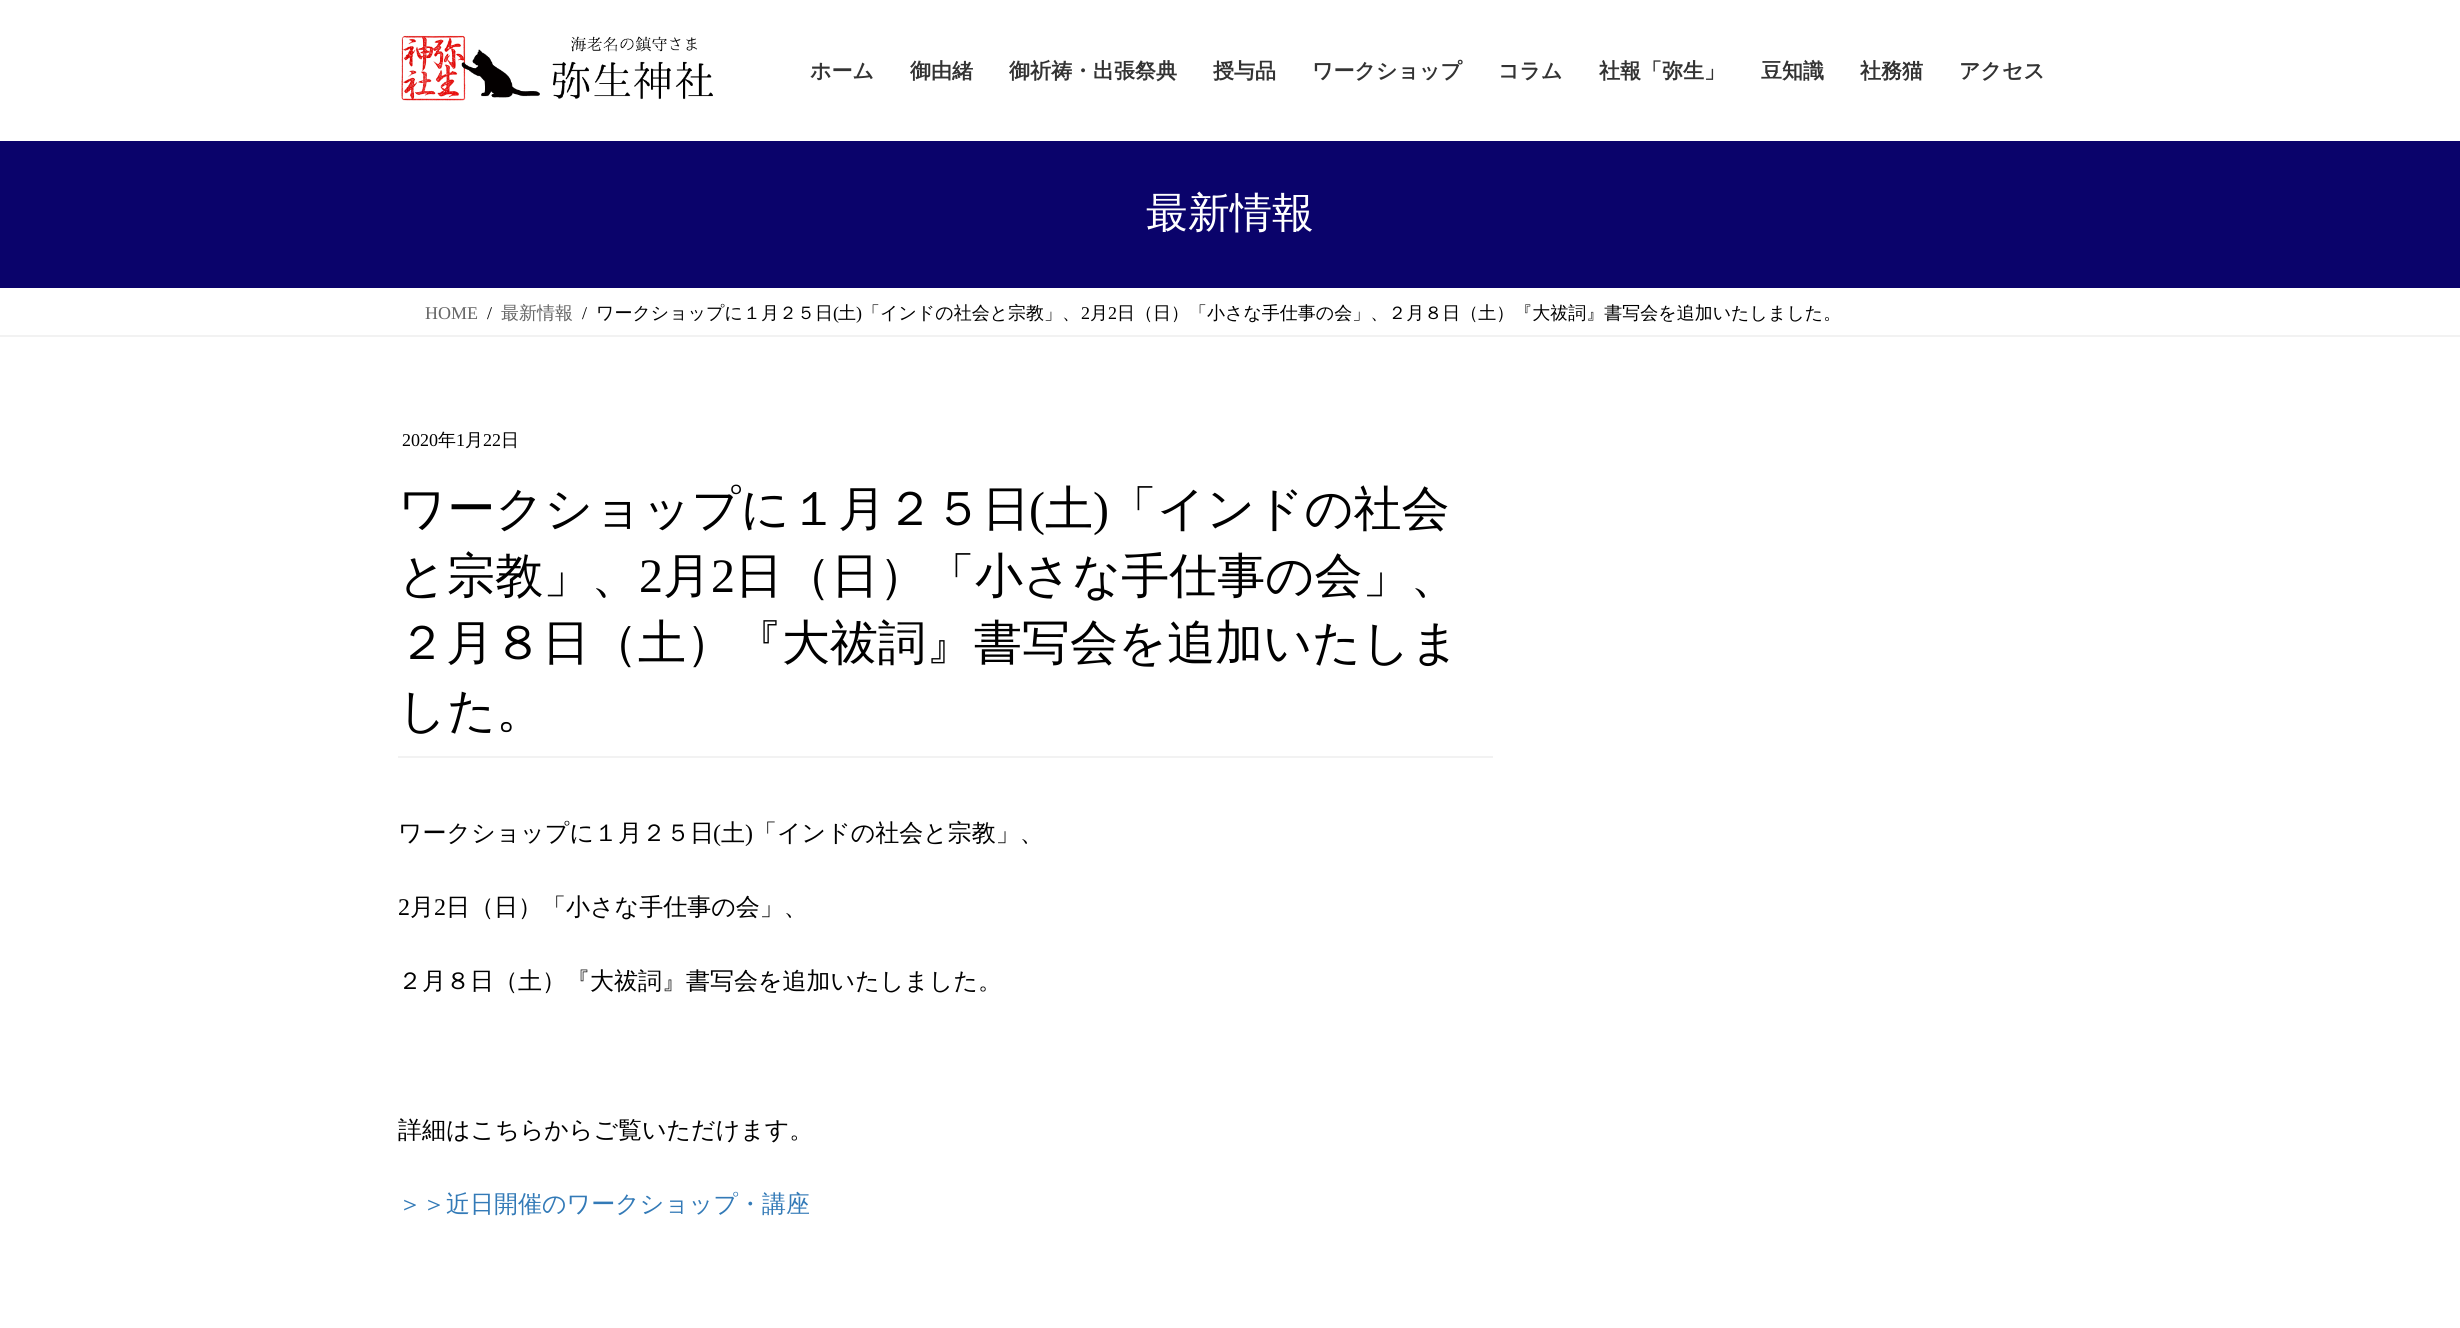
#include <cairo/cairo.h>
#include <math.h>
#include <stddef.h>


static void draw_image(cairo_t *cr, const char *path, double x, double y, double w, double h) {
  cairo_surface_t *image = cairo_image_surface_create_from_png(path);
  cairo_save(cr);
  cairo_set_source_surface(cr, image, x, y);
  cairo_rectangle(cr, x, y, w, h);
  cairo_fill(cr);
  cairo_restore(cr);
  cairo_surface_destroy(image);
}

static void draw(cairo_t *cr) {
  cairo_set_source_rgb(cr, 1, 1, 1);
  cairo_paint(cr);
  draw_image(cr, "images/1.png", 401, 35, 312, 66);
  cairo_set_source_rgb(cr, 10 / 255.0, 3 / 255.0, 107 / 255.0);
  cairo_rectangle(cr, 0, 141, 2460, 147);
  cairo_fill(cr);
  cairo_set_source_rgb(cr, 242 / 255.0, 242 / 255.0, 242 / 255.0);
  cairo_rectangle(cr, 0, 335, 2460, 2);
  cairo_fill(cr);
  cairo_rectangle(cr, 398, 756, 1095, 2);
  cairo_fill(cr);
  cairo_select_font_face(cr, "WenQuanYi Zen Hei", CAIRO_FONT_SLANT_NORMAL, CAIRO_FONT_WEIGHT_BOLD);
  cairo_set_font_size(cr, 21);
  cairo_set_source_rgb(cr, 51 / 255.0, 51 / 255.0, 51 / 255.0);
  cairo_move_to(cr, 810, 78);
  cairo_show_text(cr, "ホーム");
  cairo_move_to(cr, 910, 78);
  cairo_show_text(cr, "御由緒");
  cairo_move_to(cr, 1009, 78);
  cairo_show_text(cr, "御祈祷・出張祭典");
  cairo_move_to(cr, 1213, 78);
  cairo_show_text(cr, "授与品");
  cairo_move_to(cr, 1312, 78);
  cairo_show_text(cr, "ワークショップ");
  cairo_move_to(cr, 1498, 78);
  cairo_show_text(cr, "コラム");
  cairo_move_to(cr, 1599, 78);
  cairo_show_text(cr, "社報「弥生」");
  cairo_move_to(cr, 1761, 78);
  cairo_show_text(cr, "豆知識");
  cairo_move_to(cr, 1860, 78);
  cairo_show_text(cr, "社務猫");
  cairo_move_to(cr, 1959, 78);
  cairo_show_text(cr, "アクセス");
  cairo_select_font_face(cr, "WenQuanYi Zen Hei Medium", CAIRO_FONT_SLANT_NORMAL, CAIRO_FONT_WEIGHT_NORMAL);
  cairo_set_font_size(cr, 42);
  cairo_set_source_rgb(cr, 1, 1, 1);
  cairo_move_to(cr, 1146, 227);
  cairo_show_text(cr, "最新情報");
  cairo_select_font_face(cr, "Liberation Serif", CAIRO_FONT_SLANT_NORMAL, CAIRO_FONT_WEIGHT_NORMAL);
  cairo_set_font_size(cr, 18);
  cairo_set_source_rgb(cr, 102 / 255.0, 102 / 255.0, 102 / 255.0);
  cairo_move_to(cr, 425, 319);
  cairo_show_text(cr, "HOME");
  cairo_set_source_rgb(cr, 0, 0, 0);
  cairo_move_to(cr, 487, 319);
  cairo_show_text(cr, "/");
  cairo_select_font_face(cr, "WenQuanYi Zen Hei Medium", CAIRO_FONT_SLANT_NORMAL, CAIRO_FONT_WEIGHT_NORMAL);
  cairo_set_source_rgb(cr, 102 / 255.0, 102 / 255.0, 102 / 255.0);
  cairo_move_to(cr, 501, 319);
  cairo_show_text(cr, "最新情報");
  cairo_select_font_face(cr, "Liberation Serif", CAIRO_FONT_SLANT_NORMAL, CAIRO_FONT_WEIGHT_NORMAL);
  cairo_set_source_rgb(cr, 0, 0, 0);
  cairo_move_to(cr, 582, 319);
  cairo_show_text(cr, "/");
  cairo_select_font_face(cr, "WenQuanYi Zen Hei Medium", CAIRO_FONT_SLANT_NORMAL, CAIRO_FONT_WEIGHT_NORMAL);
  cairo_move_to(cr, 596, 319);
  cairo_show_text(cr, "ワークショップに１月２５日");
  cairo_select_font_face(cr, "Liberation Serif", CAIRO_FONT_SLANT_NORMAL, CAIRO_FONT_WEIGHT_NORMAL);
  cairo_move_to(cr, 833, 319);
  cairo_show_text(cr, "(");
  cairo_select_font_face(cr, "WenQuanYi Zen Hei Medium", CAIRO_FONT_SLANT_NORMAL, CAIRO_FONT_WEIGHT_NORMAL);
  cairo_move_to(cr, 838, 319);
  cairo_show_text(cr, "土");
  cairo_select_font_face(cr, "Liberation Serif", CAIRO_FONT_SLANT_NORMAL, CAIRO_FONT_WEIGHT_NORMAL);
  cairo_move_to(cr, 856, 319);
  cairo_show_text(cr, ")");
  cairo_select_font_face(cr, "WenQuanYi Zen Hei Medium", CAIRO_FONT_SLANT_NORMAL, CAIRO_FONT_WEIGHT_NORMAL);
  cairo_move_to(cr, 862, 319);
  cairo_show_text(cr, "「インドの社会と宗教」、");
  cairo_select_font_face(cr, "Liberation Serif", CAIRO_FONT_SLANT_NORMAL, CAIRO_FONT_WEIGHT_NORMAL);
  cairo_move_to(cr, 1081, 319);
  cairo_show_text(cr, "2");
  cairo_select_font_face(cr, "WenQuanYi Zen Hei Medium", CAIRO_FONT_SLANT_NORMAL, CAIRO_FONT_WEIGHT_NORMAL);
  cairo_move_to(cr, 1090, 319);
  cairo_show_text(cr, "月");
  cairo_select_font_face(cr, "Liberation Serif", CAIRO_FONT_SLANT_NORMAL, CAIRO_FONT_WEIGHT_NORMAL);
  cairo_move_to(cr, 1108, 319);
  cairo_show_text(cr, "2");
  cairo_select_font_face(cr, "WenQuanYi Zen Hei Medium", CAIRO_FONT_SLANT_NORMAL, CAIRO_FONT_WEIGHT_NORMAL);
  cairo_move_to(cr, 1117, 319);
  cairo_show_text(cr, "日（日）「小さな手仕事の会」、２月８日（土）『大祓詞』書写会を追加いたしました。");
  cairo_select_font_face(cr, "Liberation Serif", CAIRO_FONT_SLANT_NORMAL, CAIRO_FONT_WEIGHT_NORMAL);
  cairo_move_to(cr, 402, 446);
  cairo_show_text(cr, "2020");
  cairo_select_font_face(cr, "WenQuanYi Zen Hei Medium", CAIRO_FONT_SLANT_NORMAL, CAIRO_FONT_WEIGHT_NORMAL);
  cairo_move_to(cr, 438, 446);
  cairo_show_text(cr, "年");
  cairo_select_font_face(cr, "Liberation Serif", CAIRO_FONT_SLANT_NORMAL, CAIRO_FONT_WEIGHT_NORMAL);
  cairo_move_to(cr, 456, 446);
  cairo_show_text(cr, "1");
  cairo_select_font_face(cr, "WenQuanYi Zen Hei Medium", CAIRO_FONT_SLANT_NORMAL, CAIRO_FONT_WEIGHT_NORMAL);
  cairo_move_to(cr, 465, 446);
  cairo_show_text(cr, "月");
  cairo_select_font_face(cr, "Liberation Serif", CAIRO_FONT_SLANT_NORMAL, CAIRO_FONT_WEIGHT_NORMAL);
  cairo_move_to(cr, 483, 446);
  cairo_show_text(cr, "22");
  cairo_select_font_face(cr, "WenQuanYi Zen Hei Medium", CAIRO_FONT_SLANT_NORMAL, CAIRO_FONT_WEIGHT_NORMAL);
  cairo_move_to(cr, 501, 446);
  cairo_show_text(cr, "日");
  cairo_set_font_size(cr, 48);
  cairo_move_to(cr, 398, 525);
  cairo_show_text(cr, "ワークショップに１月２５日");
  cairo_select_font_face(cr, "Liberation Serif", CAIRO_FONT_SLANT_NORMAL, CAIRO_FONT_WEIGHT_NORMAL);
  cairo_move_to(cr, 1029, 525);
  cairo_show_text(cr, "(");
  cairo_select_font_face(cr, "WenQuanYi Zen Hei Medium", CAIRO_FONT_SLANT_NORMAL, CAIRO_FONT_WEIGHT_NORMAL);
  cairo_move_to(cr, 1045, 525);
  cairo_show_text(cr, "土");
  cairo_select_font_face(cr, "Liberation Serif", CAIRO_FONT_SLANT_NORMAL, CAIRO_FONT_WEIGHT_NORMAL);
  cairo_move_to(cr, 1093, 525);
  cairo_show_text(cr, ")");
  cairo_select_font_face(cr, "WenQuanYi Zen Hei Medium", CAIRO_FONT_SLANT_NORMAL, CAIRO_FONT_WEIGHT_NORMAL);
  cairo_move_to(cr, 1109, 525);
  cairo_show_text(cr, "「インドの社会");
  cairo_move_to(cr, 398, 592);
  cairo_show_text(cr, "と宗教」、");
  cairo_select_font_face(cr, "Liberation Serif", CAIRO_FONT_SLANT_NORMAL, CAIRO_FONT_WEIGHT_NORMAL);
  cairo_move_to(cr, 639, 592);
  cairo_show_text(cr, "2");
  cairo_select_font_face(cr, "WenQuanYi Zen Hei Medium", CAIRO_FONT_SLANT_NORMAL, CAIRO_FONT_WEIGHT_NORMAL);
  cairo_move_to(cr, 663, 592);
  cairo_show_text(cr, "月");
  cairo_select_font_face(cr, "Liberation Serif", CAIRO_FONT_SLANT_NORMAL, CAIRO_FONT_WEIGHT_NORMAL);
  cairo_move_to(cr, 711, 592);
  cairo_show_text(cr, "2");
  cairo_select_font_face(cr, "WenQuanYi Zen Hei Medium", CAIRO_FONT_SLANT_NORMAL, CAIRO_FONT_WEIGHT_NORMAL);
  cairo_move_to(cr, 735, 592);
  cairo_show_text(cr, "日（日）「小さな手仕事の会」、");
  cairo_move_to(cr, 398, 659);
  cairo_show_text(cr, "２月８日（土）『大祓詞』書写会を追加いたしま");
  cairo_move_to(cr, 398, 727);
  cairo_show_text(cr, "した。");
  cairo_set_font_size(cr, 24);
  cairo_move_to(cr, 398, 841);
  cairo_show_text(cr, "ワークショップに１月２５日");
  cairo_select_font_face(cr, "Liberation Serif", CAIRO_FONT_SLANT_NORMAL, CAIRO_FONT_WEIGHT_NORMAL);
  cairo_move_to(cr, 713, 841);
  cairo_show_text(cr, "(");
  cairo_select_font_face(cr, "WenQuanYi Zen Hei Medium", CAIRO_FONT_SLANT_NORMAL, CAIRO_FONT_WEIGHT_NORMAL);
  cairo_move_to(cr, 721, 841);
  cairo_show_text(cr, "土");
  cairo_select_font_face(cr, "Liberation Serif", CAIRO_FONT_SLANT_NORMAL, CAIRO_FONT_WEIGHT_NORMAL);
  cairo_move_to(cr, 745, 841);
  cairo_show_text(cr, ")");
  cairo_select_font_face(cr, "WenQuanYi Zen Hei Medium", CAIRO_FONT_SLANT_NORMAL, CAIRO_FONT_WEIGHT_NORMAL);
  cairo_move_to(cr, 753, 841);
  cairo_show_text(cr, "「インドの社会と宗教」、");
  cairo_select_font_face(cr, "Liberation Serif", CAIRO_FONT_SLANT_NORMAL, CAIRO_FONT_WEIGHT_NORMAL);
  cairo_move_to(cr, 398, 915);
  cairo_show_text(cr, "2");
  cairo_select_font_face(cr, "WenQuanYi Zen Hei Medium", CAIRO_FONT_SLANT_NORMAL, CAIRO_FONT_WEIGHT_NORMAL);
  cairo_move_to(cr, 410, 915);
  cairo_show_text(cr, "月");
  cairo_select_font_face(cr, "Liberation Serif", CAIRO_FONT_SLANT_NORMAL, CAIRO_FONT_WEIGHT_NORMAL);
  cairo_move_to(cr, 434, 915);
  cairo_show_text(cr, "2");
  cairo_select_font_face(cr, "WenQuanYi Zen Hei Medium", CAIRO_FONT_SLANT_NORMAL, CAIRO_FONT_WEIGHT_NORMAL);
  cairo_move_to(cr, 446, 915);
  cairo_show_text(cr, "日（日）「小さな手仕事の会」、");
  cairo_move_to(cr, 398, 989);
  cairo_show_text(cr, "２月８日（土）『大祓詞』書写会を追加いたしました。");
  cairo_move_to(cr, 398, 1138);
  cairo_show_text(cr, "詳細はこちらからご覧いただけます。");
  cairo_set_source_rgb(cr, 51 / 255.0, 122 / 255.0, 183 / 255.0);
  cairo_move_to(cr, 398, 1212);
  cairo_show_text(cr, "＞＞近日開催のワークショップ・講座");
}

int main(void) {
  cairo_surface_t *surface = cairo_image_surface_create(CAIRO_FORMAT_RGB24, 2460, 1328);
  cairo_t *cr = cairo_create(surface);
  cairo_font_options_t *options = cairo_font_options_create();
  cairo_font_options_set_hint_metrics(options, CAIRO_HINT_METRICS_OFF);
  cairo_font_options_set_hint_style(options, CAIRO_HINT_STYLE_NONE);
  cairo_set_font_options(cr, options);
  cairo_set_miter_limit(cr, 4);
  draw(cr);
  cairo_surface_write_to_png(surface, "out.png");
  cairo_font_options_destroy(options);
  cairo_destroy(cr);
  cairo_surface_destroy(surface);
  return 0;
}
